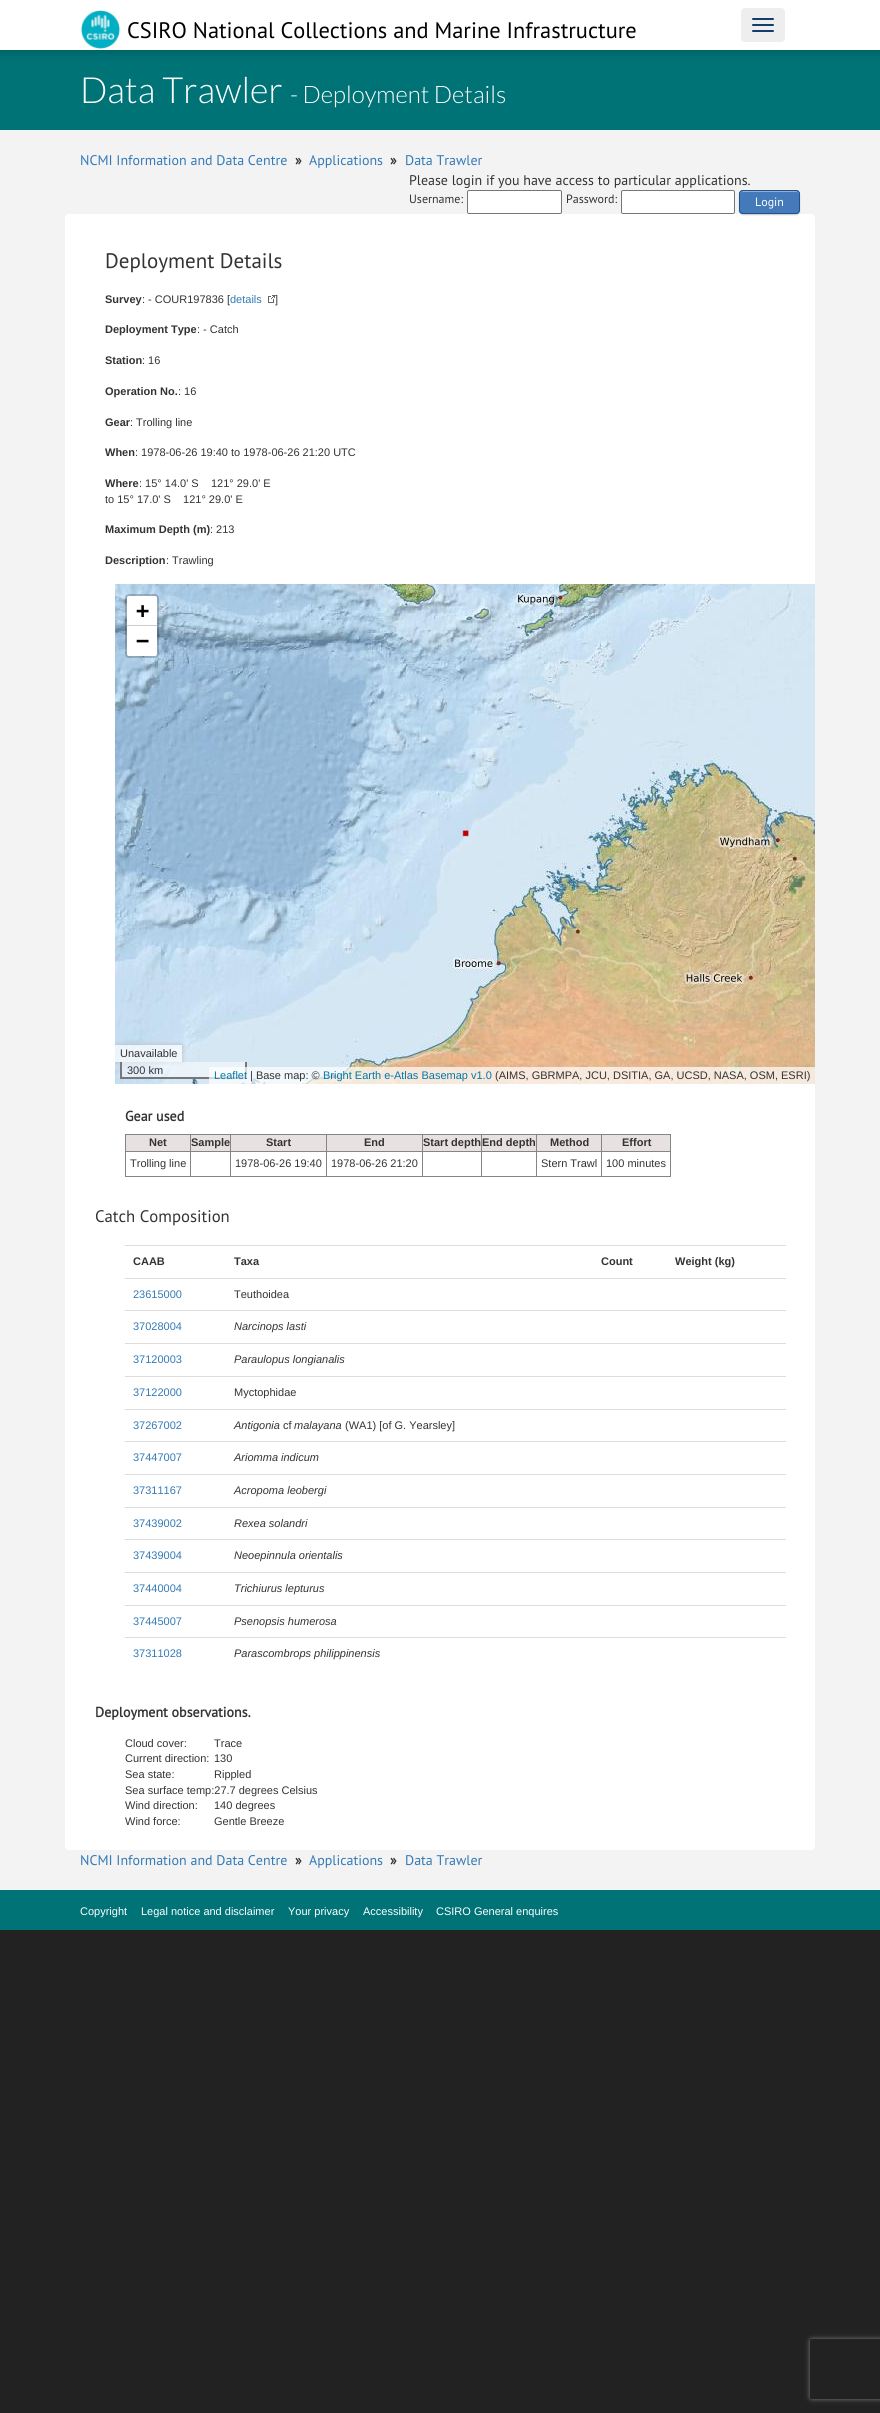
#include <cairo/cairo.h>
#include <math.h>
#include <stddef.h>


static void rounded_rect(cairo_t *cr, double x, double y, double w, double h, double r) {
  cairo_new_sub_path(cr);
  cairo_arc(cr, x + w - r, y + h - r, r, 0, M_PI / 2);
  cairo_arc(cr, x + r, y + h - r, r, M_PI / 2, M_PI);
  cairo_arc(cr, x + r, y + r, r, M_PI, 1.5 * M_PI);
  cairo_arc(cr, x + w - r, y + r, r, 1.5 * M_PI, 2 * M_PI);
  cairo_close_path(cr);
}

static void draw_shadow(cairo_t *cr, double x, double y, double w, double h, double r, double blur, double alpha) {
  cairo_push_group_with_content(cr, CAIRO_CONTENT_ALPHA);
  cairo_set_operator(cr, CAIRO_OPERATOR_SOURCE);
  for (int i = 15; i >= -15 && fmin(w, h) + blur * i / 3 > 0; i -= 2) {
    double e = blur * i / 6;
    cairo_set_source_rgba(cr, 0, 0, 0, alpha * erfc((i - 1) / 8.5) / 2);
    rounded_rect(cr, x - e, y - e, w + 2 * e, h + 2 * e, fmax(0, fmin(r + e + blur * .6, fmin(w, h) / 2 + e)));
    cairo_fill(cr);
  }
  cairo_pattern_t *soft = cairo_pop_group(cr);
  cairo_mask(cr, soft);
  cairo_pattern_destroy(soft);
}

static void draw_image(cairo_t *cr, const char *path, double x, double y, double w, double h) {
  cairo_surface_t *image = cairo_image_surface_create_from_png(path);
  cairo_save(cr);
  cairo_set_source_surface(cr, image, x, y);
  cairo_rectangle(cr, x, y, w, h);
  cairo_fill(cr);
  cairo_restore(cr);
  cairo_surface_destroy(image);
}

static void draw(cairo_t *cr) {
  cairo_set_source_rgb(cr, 34 / 255.0, 34 / 255.0, 34 / 255.0);
  cairo_paint(cr);
  cairo_set_source_rgb(cr, 243 / 255.0, 243 / 255.0, 243 / 255.0);
  cairo_rectangle(cr, 0, 130, 880, 1760);
  cairo_fill(cr);
  cairo_set_source_rgb(cr, 0, 115 / 255.0, 119 / 255.0);
  cairo_rectangle(cr, 0, 50, 880, 80);
  cairo_fill(cr);
  cairo_set_source_rgb(cr, 0, 0, 0);
  draw_shadow(cr, 0, 2, 880, 50, 0, 5, 0.2);
  cairo_set_source_rgb(cr, 1, 1, 1);
  cairo_rectangle(cr, 0, 0, 880, 50);
  cairo_fill(cr);
  draw_image(cr, "images/1.png", 81, 10, 39, 39);
  cairo_set_source_rgb(cr, 238 / 255.0, 238 / 255.0, 238 / 255.0);
  rounded_rect(cr, 741, 8, 44, 34, 4);
  cairo_fill(cr);
  cairo_set_source_rgb(cr, 21 / 255.0, 61 / 255.0, 107 / 255.0);
  rounded_rect(cr, 752, 18, 22, 2, 1);
  cairo_fill(cr);
  rounded_rect(cr, 752, 24, 22, 2, 1);
  cairo_fill(cr);
  rounded_rect(cr, 752, 30, 22, 2, 1);
  cairo_fill(cr);
  cairo_set_source_rgb(cr, 1, 1, 1);
  rounded_rect(cr, 467.5, 190.5, 94, 23, 1.5);
  cairo_fill_preserve(cr);
  cairo_set_source_rgb(cr, 118 / 255.0, 118 / 255.0, 118 / 255.0);
  cairo_set_line_width(cr, 1);
  cairo_stroke(cr);
  cairo_set_source_rgb(cr, 1, 1, 1);
  rounded_rect(cr, 621.5, 190.5, 113, 23, 1.5);
  cairo_fill_preserve(cr);
  cairo_set_source_rgb(cr, 118 / 255.0, 118 / 255.0, 118 / 255.0);
  cairo_stroke(cr);
  cairo_set_source_rgb(cr, 1, 1, 1);
  rounded_rect(cr, 65, 214, 750, 1636, 4);
  cairo_fill(cr);
  cairo_set_source_rgb(cr, 0, 0, 0);
  draw_shadow(cr, 739, 191, 61, 24, 4, 0.5, 0.2);
  cairo_set_source_rgb(cr, 68 / 255.0, 121 / 255.0, 186 / 255.0);
  rounded_rect(cr, 739, 190, 61, 24, 4);
  cairo_fill(cr);
  cairo_set_source_rgb(cr, 143 / 255.0, 175 / 255.0, 214 / 255.0);
  cairo_new_path(cr);
  cairo_move_to(cr, 743, 192);
  cairo_line_to(cr, 796, 192);
  cairo_curve_to(cr, 798, 192, 799, 193, 799, 195);
  cairo_curve_to(cr, 799, 189, 792, 191, 787, 191);
  cairo_line_to(cr, 752, 191);
  cairo_curve_to(cr, 747, 191, 740, 189, 740, 195);
  cairo_curve_to(cr, 740, 193, 741, 192, 743, 192);
  cairo_close_path(cr);
  cairo_fill(cr);
  rounded_rect(cr, 739.5, 190.5, 60, 23, 3.5);
  cairo_set_source_rgb(cr, 32 / 255.0, 83 / 255.0, 141 / 255.0);
  cairo_stroke(cr);
  cairo_save(cr);
  cairo_set_fill_rule(cr, CAIRO_FILL_RULE_EVEN_ODD);
  cairo_new_path(cr);
  cairo_move_to(cr, 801, 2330);
  cairo_line_to(cr, 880, 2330);
  cairo_line_to(cr, 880, 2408);
  cairo_line_to(cr, 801, 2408);
  cairo_close_path(cr);
  cairo_move_to(cr, 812, 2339);
  cairo_line_to(cr, 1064, 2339);
  cairo_curve_to(cr, 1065, 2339, 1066, 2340, 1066, 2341);
  cairo_line_to(cr, 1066, 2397);
  cairo_curve_to(cr, 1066, 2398, 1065, 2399, 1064, 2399);
  cairo_line_to(cr, 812, 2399);
  cairo_curve_to(cr, 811, 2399, 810, 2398, 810, 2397);
  cairo_line_to(cr, 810, 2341);
  cairo_curve_to(cr, 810, 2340, 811, 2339, 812, 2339);
  cairo_close_path(cr);
  cairo_clip(cr);
  cairo_set_source_rgb(cr, 128 / 255.0, 128 / 255.0, 128 / 255.0);
  draw_shadow(cr, 810, 2339, 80, 60, 2, 2.5, 1);
  cairo_restore(cr);
  draw_image(cr, "images/2.png", 268, 295, 7, 8);
  draw_image(cr, "images/3.png", 115, 584, 197, 60);
  draw_image(cr, "images/4.png", 312, 584, 256, 60);
  draw_image(cr, "images/5.png", 568, 584, 247, 60);
  draw_image(cr, "images/6.png", 115, 644, 197, 256);
  draw_image(cr, "images/7.png", 312, 644, 256, 256);
  draw_image(cr, "images/8.png", 568, 644, 247, 256);
  draw_image(cr, "images/9.png", 115, 900, 197, 184);
  draw_image(cr, "images/10.png", 312, 900, 256, 184);
  draw_image(cr, "images/11.png", 568, 900, 247, 184);
  draw_image(cr, "images/12.png", 462, 830, 7, 7);
  rounded_rect(cr, 126, 595, 32, 62, 3);
  cairo_set_source_rgba(cr, 0, 0, 0, 0.2);
  cairo_set_line_width(cr, 2);
  cairo_stroke(cr);
  cairo_set_source_rgb(cr, 1, 1, 1);
  cairo_new_path(cr);
  cairo_move_to(cr, 129, 596);
  cairo_line_to(cr, 155, 596);
  cairo_curve_to(cr, 156, 596, 157, 597, 157, 598);
  cairo_line_to(cr, 157, 626);
  cairo_line_to(cr, 127, 626);
  cairo_line_to(cr, 127, 598);
  cairo_curve_to(cr, 127, 597, 128, 596, 129, 596);
  cairo_close_path(cr);
  cairo_fill(cr);
  cairo_set_source_rgb(cr, 204 / 255.0, 204 / 255.0, 204 / 255.0);
  cairo_rectangle(cr, 127, 625, 30, 1);
  cairo_fill(cr);
  cairo_set_source_rgb(cr, 1, 1, 1);
  cairo_new_path(cr);
  cairo_move_to(cr, 127, 626);
  cairo_line_to(cr, 157, 626);
  cairo_line_to(cr, 157, 654);
  cairo_curve_to(cr, 157, 655, 156, 656, 155, 656);
  cairo_line_to(cr, 129, 656);
  cairo_curve_to(cr, 128, 656, 127, 655, 127, 654);
  cairo_close_path(cr);
  cairo_fill(cr);
  cairo_save(cr);
  cairo_rectangle(cr, 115, 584, 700, 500);
  cairo_clip(cr);
  cairo_set_fill_rule(cr, CAIRO_FILL_RULE_EVEN_ODD);
  cairo_new_path(cr);
  cairo_move_to(cr, 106, 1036);
  cairo_line_to(cr, 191, 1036);
  cairo_line_to(cr, 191, 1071);
  cairo_line_to(cr, 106, 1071);
  cairo_close_path(cr);
  cairo_move_to(cr, 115, 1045);
  cairo_line_to(cr, 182, 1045);
  cairo_line_to(cr, 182, 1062);
  cairo_line_to(cr, 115, 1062);
  cairo_close_path(cr);
  cairo_clip(cr);
  cairo_set_source_rgb(cr, 187 / 255.0, 187 / 255.0, 187 / 255.0);
  draw_shadow(cr, 115, 1045, 67, 17, 0, 2.5, 1);
  cairo_restore(cr);
  cairo_set_source_rgba(cr, 1, 1, 1, 0.7);
  cairo_rectangle(cr, 115, 1045, 67, 17);
  cairo_fill(cr);
  cairo_set_source_rgba(cr, 1, 1, 1, 0.5);
  cairo_rectangle(cr, 122, 1062, 123, 15);
  cairo_fill(cr);
  cairo_set_source_rgb(cr, 119 / 255.0, 119 / 255.0, 119 / 255.0);
  cairo_rectangle(cr, 245, 1062, 2, 17);
  cairo_fill(cr);
  cairo_rectangle(cr, 120, 1077, 127, 2);
  cairo_fill(cr);
  cairo_rectangle(cr, 120, 1062, 2, 17);
  cairo_fill(cr);
  cairo_set_source_rgba(cr, 1, 1, 1, 0.7);
  cairo_rectangle(cr, 209, 1067, 606, 17);
  cairo_fill(cr);
  cairo_set_source_rgb(cr, 232 / 255.0, 225 / 255.0, 225 / 255.0);
  cairo_rectangle(cr, 126, 1135, 64, 16);
  cairo_fill(cr);
  cairo_set_source_rgb(cr, 133 / 255.0, 133 / 255.0, 133 / 255.0);
  cairo_rectangle(cr, 601, 1134, 70, 1);
  cairo_fill(cr);
  cairo_rectangle(cr, 601, 1151, 70, 1);
  cairo_fill(cr);
  cairo_rectangle(cr, 670, 1151, 1, 26);
  cairo_fill(cr);
  cairo_rectangle(cr, 601, 1176, 70, 1);
  cairo_fill(cr);
  cairo_rectangle(cr, 601, 1151, 1, 26);
  cairo_fill(cr);
  cairo_rectangle(cr, 536, 1151, 66, 1);
  cairo_fill(cr);
  cairo_rectangle(cr, 601, 1134, 1, 18);
  cairo_fill(cr);
  cairo_rectangle(cr, 536, 1134, 66, 1);
  cairo_fill(cr);
  cairo_rectangle(cr, 536, 1176, 66, 1);
  cairo_fill(cr);
  cairo_rectangle(cr, 536, 1151, 1, 26);
  cairo_fill(cr);
  cairo_rectangle(cr, 481, 1151, 56, 1);
  cairo_fill(cr);
  cairo_rectangle(cr, 536, 1134, 1, 18);
  cairo_fill(cr);
  cairo_rectangle(cr, 481, 1134, 56, 1);
  cairo_fill(cr);
  cairo_rectangle(cr, 481, 1176, 56, 1);
  cairo_fill(cr);
  cairo_rectangle(cr, 481, 1151, 1, 26);
  cairo_fill(cr);
  cairo_rectangle(cr, 422, 1151, 60, 1);
  cairo_fill(cr);
  cairo_rectangle(cr, 481, 1134, 1, 18);
  cairo_fill(cr);
  cairo_rectangle(cr, 422, 1134, 60, 1);
  cairo_fill(cr);
  cairo_rectangle(cr, 422, 1176, 60, 1);
  cairo_fill(cr);
  cairo_rectangle(cr, 422, 1151, 1, 26);
  cairo_fill(cr);
  cairo_rectangle(cr, 326, 1151, 97, 1);
  cairo_fill(cr);
  cairo_rectangle(cr, 422, 1134, 1, 18);
  cairo_fill(cr);
  cairo_rectangle(cr, 326, 1134, 97, 1);
  cairo_fill(cr);
  cairo_rectangle(cr, 326, 1176, 97, 1);
  cairo_fill(cr);
  cairo_rectangle(cr, 326, 1151, 1, 26);
  cairo_fill(cr);
  cairo_rectangle(cr, 230, 1151, 97, 1);
  cairo_fill(cr);
  cairo_rectangle(cr, 326, 1134, 1, 18);
  cairo_fill(cr);
  cairo_rectangle(cr, 230, 1134, 97, 1);
  cairo_fill(cr);
  cairo_rectangle(cr, 230, 1176, 97, 1);
  cairo_fill(cr);
  cairo_rectangle(cr, 230, 1151, 1, 26);
  cairo_fill(cr);
  cairo_rectangle(cr, 190, 1151, 41, 1);
  cairo_fill(cr);
  cairo_rectangle(cr, 230, 1134, 1, 18);
  cairo_fill(cr);
  cairo_rectangle(cr, 190, 1134, 41, 1);
  cairo_fill(cr);
  cairo_rectangle(cr, 190, 1176, 41, 1);
  cairo_fill(cr);
  cairo_rectangle(cr, 190, 1151, 1, 26);
  cairo_fill(cr);
  cairo_rectangle(cr, 125, 1151, 66, 1);
  cairo_fill(cr);
  cairo_rectangle(cr, 190, 1134, 1, 18);
  cairo_fill(cr);
  cairo_rectangle(cr, 125, 1134, 66, 1);
  cairo_fill(cr);
  cairo_rectangle(cr, 125, 1176, 66, 1);
  cairo_fill(cr);
  cairo_rectangle(cr, 125, 1151, 1, 26);
  cairo_fill(cr);
  cairo_rectangle(cr, 125, 1134, 1, 18);
  cairo_fill(cr);
  cairo_set_source_rgb(cr, 232 / 255.0, 225 / 255.0, 225 / 255.0);
  cairo_rectangle(cr, 191, 1135, 39, 16);
  cairo_fill(cr);
  cairo_rectangle(cr, 231, 1135, 95, 16);
  cairo_fill(cr);
  cairo_rectangle(cr, 327, 1135, 95, 16);
  cairo_fill(cr);
  cairo_rectangle(cr, 423, 1135, 58, 16);
  cairo_fill(cr);
  cairo_rectangle(cr, 482, 1135, 54, 16);
  cairo_fill(cr);
  cairo_rectangle(cr, 537, 1135, 64, 16);
  cairo_fill(cr);
  cairo_rectangle(cr, 602, 1135, 68, 16);
  cairo_fill(cr);
  cairo_set_source_rgb(cr, 133 / 255.0, 133 / 255.0, 133 / 255.0);
  cairo_rectangle(cr, 670, 1134, 1, 18);
  cairo_fill(cr);
  cairo_set_source_rgb(cr, 221 / 255.0, 221 / 255.0, 221 / 255.0);
  cairo_rectangle(cr, 125, 1245, 661, 1);
  cairo_fill(cr);
  cairo_rectangle(cr, 125, 1278, 661, 1);
  cairo_fill(cr);
  cairo_rectangle(cr, 125, 1310, 661, 1);
  cairo_fill(cr);
  cairo_rectangle(cr, 125, 1343, 661, 1);
  cairo_fill(cr);
  cairo_rectangle(cr, 125, 1376, 661, 1);
  cairo_fill(cr);
  cairo_rectangle(cr, 125, 1409, 661, 1);
  cairo_fill(cr);
  cairo_rectangle(cr, 125, 1441, 661, 1);
  cairo_fill(cr);
  cairo_rectangle(cr, 125, 1474, 661, 1);
  cairo_fill(cr);
  cairo_rectangle(cr, 125, 1507, 661, 1);
  cairo_fill(cr);
  cairo_rectangle(cr, 125, 1539, 661, 1);
  cairo_fill(cr);
  cairo_rectangle(cr, 125, 1572, 661, 1);
  cairo_fill(cr);
  cairo_rectangle(cr, 125, 1605, 661, 1);
  cairo_fill(cr);
  cairo_rectangle(cr, 125, 1637, 661, 1);
  cairo_fill(cr);
  cairo_set_source_rgb(cr, 0, 115 / 255.0, 119 / 255.0);
  cairo_rectangle(cr, 0, 1890, 880, 40);
  cairo_fill(cr);
  cairo_select_font_face(cr, "PT Sans", CAIRO_FONT_SLANT_NORMAL, CAIRO_FONT_WEIGHT_NORMAL);
  cairo_set_font_size(cr, 22.4);
  cairo_set_source_rgb(cr, 0, 0, 0);
  cairo_move_to(cr, 127, 38);
  cairo_show_text(cr, "CSIRO National Collections and Marine Infrastructure");
  cairo_select_font_face(cr, "Lato Light", CAIRO_FONT_SLANT_NORMAL, CAIRO_FONT_WEIGHT_NORMAL);
  cairo_set_font_size(cr, 36);
  cairo_set_source_rgb(cr, 1, 1, 1);
  cairo_move_to(cr, 80, 103);
  cairo_show_text(cr, "Data Trawler");
  cairo_set_font_size(cr, 24);
  cairo_move_to(cr, 290, 103);
  cairo_show_text(cr, "- Deployment Details");
  cairo_select_font_face(cr, "PT Sans", CAIRO_FONT_SLANT_NORMAL, CAIRO_FONT_WEIGHT_NORMAL);
  cairo_set_font_size(cr, 14);
  cairo_set_source_rgb(cr, 51 / 255.0, 122 / 255.0, 183 / 255.0);
  cairo_move_to(cr, 80, 165);
  cairo_show_text(cr, "NCMI Information and Data Centre");
  cairo_select_font_face(cr, "PT Sans", CAIRO_FONT_SLANT_NORMAL, CAIRO_FONT_WEIGHT_BOLD);
  cairo_set_source_rgb(cr, 51 / 255.0, 51 / 255.0, 51 / 255.0);
  cairo_move_to(cr, 295, 165);
  cairo_show_text(cr, "»");
  cairo_select_font_face(cr, "PT Sans", CAIRO_FONT_SLANT_NORMAL, CAIRO_FONT_WEIGHT_NORMAL);
  cairo_set_source_rgb(cr, 51 / 255.0, 122 / 255.0, 183 / 255.0);
  cairo_move_to(cr, 309, 165);
  cairo_show_text(cr, "Applications");
  cairo_select_font_face(cr, "PT Sans", CAIRO_FONT_SLANT_NORMAL, CAIRO_FONT_WEIGHT_BOLD);
  cairo_set_source_rgb(cr, 51 / 255.0, 51 / 255.0, 51 / 255.0);
  cairo_move_to(cr, 390, 165);
  cairo_show_text(cr, "»");
  cairo_select_font_face(cr, "PT Sans", CAIRO_FONT_SLANT_NORMAL, CAIRO_FONT_WEIGHT_NORMAL);
  cairo_set_source_rgb(cr, 51 / 255.0, 122 / 255.0, 183 / 255.0);
  cairo_move_to(cr, 405, 165);
  cairo_show_text(cr, "Data Trawler");
  cairo_set_source_rgb(cr, 51 / 255.0, 51 / 255.0, 51 / 255.0);
  cairo_move_to(cr, 409, 185);
  cairo_show_text(cr, "Please login if you have access to particular applications.");
  cairo_set_font_size(cr, 12);
  cairo_move_to(cr, 409, 203);
  cairo_show_text(cr, "Username:");
  cairo_move_to(cr, 566, 203);
  cairo_show_text(cr, "Password:");
  cairo_set_source_rgb(cr, 1, 1, 1);
  cairo_move_to(cr, 755, 206);
  cairo_show_text(cr, "Login");
  cairo_set_font_size(cr, 21);
  cairo_set_source_rgb(cr, 51 / 255.0, 51 / 255.0, 51 / 255.0);
  cairo_move_to(cr, 105, 268);
  cairo_show_text(cr, "Deployment Details");
  cairo_select_font_face(cr, "Liberation Sans", CAIRO_FONT_SLANT_NORMAL, CAIRO_FONT_WEIGHT_BOLD);
  cairo_set_font_size(cr, 11);
  cairo_move_to(cr, 105, 303);
  cairo_show_text(cr, "Survey");
  cairo_select_font_face(cr, "Liberation Sans", CAIRO_FONT_SLANT_NORMAL, CAIRO_FONT_WEIGHT_NORMAL);
  cairo_move_to(cr, 142, 303);
  cairo_show_text(cr, ": - COUR197836 [");
  cairo_set_source_rgb(cr, 51 / 255.0, 122 / 255.0, 183 / 255.0);
  cairo_move_to(cr, 230, 303);
  cairo_show_text(cr, "details");
  cairo_set_source_rgb(cr, 51 / 255.0, 51 / 255.0, 51 / 255.0);
  cairo_move_to(cr, 275, 303);
  cairo_show_text(cr, "]");
  cairo_select_font_face(cr, "Liberation Sans", CAIRO_FONT_SLANT_NORMAL, CAIRO_FONT_WEIGHT_BOLD);
  cairo_move_to(cr, 105, 333);
  cairo_show_text(cr, "Deployment Type");
  cairo_select_font_face(cr, "Liberation Sans", CAIRO_FONT_SLANT_NORMAL, CAIRO_FONT_WEIGHT_NORMAL);
  cairo_move_to(cr, 197, 333);
  cairo_show_text(cr, ": - Catch");
  cairo_select_font_face(cr, "Liberation Sans", CAIRO_FONT_SLANT_NORMAL, CAIRO_FONT_WEIGHT_BOLD);
  cairo_move_to(cr, 105, 364);
  cairo_show_text(cr, "Station");
  cairo_select_font_face(cr, "Liberation Sans", CAIRO_FONT_SLANT_NORMAL, CAIRO_FONT_WEIGHT_NORMAL);
  cairo_move_to(cr, 142, 364);
  cairo_show_text(cr, ": 16");
  cairo_select_font_face(cr, "Liberation Sans", CAIRO_FONT_SLANT_NORMAL, CAIRO_FONT_WEIGHT_BOLD);
  cairo_move_to(cr, 105, 395);
  cairo_show_text(cr, "Operation No.");
  cairo_select_font_face(cr, "Liberation Sans", CAIRO_FONT_SLANT_NORMAL, CAIRO_FONT_WEIGHT_NORMAL);
  cairo_move_to(cr, 178, 395);
  cairo_show_text(cr, ": 16");
  cairo_select_font_face(cr, "Liberation Sans", CAIRO_FONT_SLANT_NORMAL, CAIRO_FONT_WEIGHT_BOLD);
  cairo_move_to(cr, 105, 426);
  cairo_show_text(cr, "Gear");
  cairo_select_font_face(cr, "Liberation Sans", CAIRO_FONT_SLANT_NORMAL, CAIRO_FONT_WEIGHT_NORMAL);
  cairo_move_to(cr, 130, 426);
  cairo_show_text(cr, ": Trolling line");
  cairo_select_font_face(cr, "Liberation Sans", CAIRO_FONT_SLANT_NORMAL, CAIRO_FONT_WEIGHT_BOLD);
  cairo_move_to(cr, 105, 456);
  cairo_show_text(cr, "When");
  cairo_select_font_face(cr, "Liberation Sans", CAIRO_FONT_SLANT_NORMAL, CAIRO_FONT_WEIGHT_NORMAL);
  cairo_move_to(cr, 135, 456);
  cairo_show_text(cr, ": 1978-06-26 19:40 to 1978-06-26 21:20 UTC");
  cairo_select_font_face(cr, "Liberation Sans", CAIRO_FONT_SLANT_NORMAL, CAIRO_FONT_WEIGHT_BOLD);
  cairo_move_to(cr, 105, 487);
  cairo_show_text(cr, "Where");
  cairo_select_font_face(cr, "Liberation Sans", CAIRO_FONT_SLANT_NORMAL, CAIRO_FONT_WEIGHT_NORMAL);
  cairo_move_to(cr, 139, 487);
  cairo_show_text(cr, ": 15° 14.0' S    121° 29.0' E");
  cairo_move_to(cr, 105, 503);
  cairo_show_text(cr, "to 15° 17.0' S    121° 29.0' E");
  cairo_select_font_face(cr, "Liberation Sans", CAIRO_FONT_SLANT_NORMAL, CAIRO_FONT_WEIGHT_BOLD);
  cairo_move_to(cr, 105, 533);
  cairo_show_text(cr, "Maximum Depth (m)");
  cairo_select_font_face(cr, "Liberation Sans", CAIRO_FONT_SLANT_NORMAL, CAIRO_FONT_WEIGHT_NORMAL);
  cairo_move_to(cr, 210, 533);
  cairo_show_text(cr, ": 213");
  cairo_select_font_face(cr, "Liberation Sans", CAIRO_FONT_SLANT_NORMAL, CAIRO_FONT_WEIGHT_BOLD);
  cairo_move_to(cr, 105, 564);
  cairo_show_text(cr, "Description");
  cairo_select_font_face(cr, "Liberation Sans", CAIRO_FONT_SLANT_NORMAL, CAIRO_FONT_WEIGHT_NORMAL);
  cairo_move_to(cr, 166, 564);
  cairo_show_text(cr, ": Trawling");
  cairo_select_font_face(cr, "DejaVu Sans Mono", CAIRO_FONT_SLANT_NORMAL, CAIRO_FONT_WEIGHT_BOLD);
  cairo_set_font_size(cr, 22);
  cairo_set_source_rgb(cr, 0, 0, 0);
  cairo_move_to(cr, 136, 618);
  cairo_show_text(cr, "+");
  cairo_move_to(cr, 136, 648);
  cairo_show_text(cr, "−");
  cairo_select_font_face(cr, "Liberation Sans", CAIRO_FONT_SLANT_NORMAL, CAIRO_FONT_WEIGHT_NORMAL);
  cairo_set_font_size(cr, 11);
  cairo_set_source_rgb(cr, 51 / 255.0, 51 / 255.0, 51 / 255.0);
  cairo_move_to(cr, 120, 1057);
  cairo_show_text(cr, "Unavailable");
  cairo_move_to(cr, 127, 1074);
  cairo_show_text(cr, "300 km");
  cairo_set_source_rgb(cr, 0, 120 / 255.0, 168 / 255.0);
  cairo_move_to(cr, 214, 1079);
  cairo_show_text(cr, "Leaflet");
  cairo_set_source_rgb(cr, 51 / 255.0, 51 / 255.0, 51 / 255.0);
  cairo_move_to(cr, 250, 1079);
  cairo_show_text(cr, "| Base map: ©");
  cairo_set_source_rgb(cr, 0, 120 / 255.0, 168 / 255.0);
  cairo_move_to(cr, 323, 1079);
  cairo_show_text(cr, "Bright Earth e-Atlas Basemap v1.0");
  cairo_set_source_rgb(cr, 51 / 255.0, 51 / 255.0, 51 / 255.0);
  cairo_move_to(cr, 495, 1079);
  cairo_show_text(cr, "(AIMS, GBRMPA, JCU, DSITIA, GA, UCSD, NASA, OSM, ESRI)");
  cairo_select_font_face(cr, "PT Sans", CAIRO_FONT_SLANT_NORMAL, CAIRO_FONT_WEIGHT_BOLD);
  cairo_set_font_size(cr, 14);
  cairo_move_to(cr, 125, 1121);
  cairo_show_text(cr, "Gear used");
  cairo_select_font_face(cr, "Liberation Sans", CAIRO_FONT_SLANT_NORMAL, CAIRO_FONT_WEIGHT_BOLD);
  cairo_set_font_size(cr, 11);
  cairo_move_to(cr, 149, 1146);
  cairo_show_text(cr, "Net");
  cairo_move_to(cr, 191, 1146);
  cairo_show_text(cr, "Sample");
  cairo_move_to(cr, 266, 1146);
  cairo_show_text(cr, "Start");
  cairo_move_to(cr, 364, 1146);
  cairo_show_text(cr, "End");
  cairo_move_to(cr, 423, 1146);
  cairo_show_text(cr, "Start depth");
  cairo_move_to(cr, 482, 1146);
  cairo_show_text(cr, "End depth");
  cairo_move_to(cr, 550, 1146);
  cairo_show_text(cr, "Method");
  cairo_move_to(cr, 622, 1146);
  cairo_show_text(cr, "Effort");
  cairo_select_font_face(cr, "Liberation Sans", CAIRO_FONT_SLANT_NORMAL, CAIRO_FONT_WEIGHT_NORMAL);
  cairo_move_to(cr, 130, 1167);
  cairo_show_text(cr, "Trolling line");
  cairo_move_to(cr, 235, 1167);
  cairo_show_text(cr, "1978-06-26 19:40");
  cairo_move_to(cr, 331, 1167);
  cairo_show_text(cr, "1978-06-26 21:20");
  cairo_move_to(cr, 541, 1167);
  cairo_show_text(cr, "Stern Trawl");
  cairo_move_to(cr, 606, 1167);
  cairo_show_text(cr, "100 minutes");
  cairo_select_font_face(cr, "PT Sans", CAIRO_FONT_SLANT_NORMAL, CAIRO_FONT_WEIGHT_NORMAL);
  cairo_set_font_size(cr, 16.75);
  cairo_move_to(cr, 95, 1222);
  cairo_show_text(cr, "Catch Composition");
  cairo_select_font_face(cr, "Liberation Sans", CAIRO_FONT_SLANT_NORMAL, CAIRO_FONT_WEIGHT_BOLD);
  cairo_set_font_size(cr, 11);
  cairo_move_to(cr, 133, 1265);
  cairo_show_text(cr, "CAAB");
  cairo_move_to(cr, 234, 1265);
  cairo_show_text(cr, "Taxa");
  cairo_move_to(cr, 601, 1265);
  cairo_show_text(cr, "Count");
  cairo_move_to(cr, 675, 1265);
  cairo_show_text(cr, "Weight (kg)");
  cairo_select_font_face(cr, "Liberation Sans", CAIRO_FONT_SLANT_NORMAL, CAIRO_FONT_WEIGHT_NORMAL);
  cairo_set_source_rgb(cr, 51 / 255.0, 122 / 255.0, 183 / 255.0);
  cairo_move_to(cr, 133, 1298);
  cairo_show_text(cr, "23615000");
  cairo_set_source_rgb(cr, 51 / 255.0, 51 / 255.0, 51 / 255.0);
  cairo_move_to(cr, 234, 1298);
  cairo_show_text(cr, "Teuthoidea");
  cairo_set_source_rgb(cr, 51 / 255.0, 122 / 255.0, 183 / 255.0);
  cairo_move_to(cr, 133, 1330);
  cairo_show_text(cr, "37028004");
  cairo_select_font_face(cr, "Liberation Sans", CAIRO_FONT_SLANT_ITALIC, CAIRO_FONT_WEIGHT_NORMAL);
  cairo_set_source_rgb(cr, 51 / 255.0, 51 / 255.0, 51 / 255.0);
  cairo_move_to(cr, 234, 1330);
  cairo_show_text(cr, "Narcinops lasti");
  cairo_select_font_face(cr, "Liberation Sans", CAIRO_FONT_SLANT_NORMAL, CAIRO_FONT_WEIGHT_NORMAL);
  cairo_set_source_rgb(cr, 51 / 255.0, 122 / 255.0, 183 / 255.0);
  cairo_move_to(cr, 133, 1363);
  cairo_show_text(cr, "37120003");
  cairo_select_font_face(cr, "Liberation Sans", CAIRO_FONT_SLANT_ITALIC, CAIRO_FONT_WEIGHT_NORMAL);
  cairo_set_source_rgb(cr, 51 / 255.0, 51 / 255.0, 51 / 255.0);
  cairo_move_to(cr, 234, 1363);
  cairo_show_text(cr, "Paraulopus longianalis");
  cairo_select_font_face(cr, "Liberation Sans", CAIRO_FONT_SLANT_NORMAL, CAIRO_FONT_WEIGHT_NORMAL);
  cairo_set_source_rgb(cr, 51 / 255.0, 122 / 255.0, 183 / 255.0);
  cairo_move_to(cr, 133, 1396);
  cairo_show_text(cr, "37122000");
  cairo_set_source_rgb(cr, 51 / 255.0, 51 / 255.0, 51 / 255.0);
  cairo_move_to(cr, 234, 1396);
  cairo_show_text(cr, "Myctophidae");
  cairo_set_source_rgb(cr, 51 / 255.0, 122 / 255.0, 183 / 255.0);
  cairo_move_to(cr, 133, 1429);
  cairo_show_text(cr, "37267002");
  cairo_select_font_face(cr, "Liberation Sans", CAIRO_FONT_SLANT_ITALIC, CAIRO_FONT_WEIGHT_NORMAL);
  cairo_set_source_rgb(cr, 51 / 255.0, 51 / 255.0, 51 / 255.0);
  cairo_move_to(cr, 234, 1429);
  cairo_show_text(cr, "Antigonia");
  cairo_select_font_face(cr, "Liberation Sans", CAIRO_FONT_SLANT_NORMAL, CAIRO_FONT_WEIGHT_NORMAL);
  cairo_move_to(cr, 283, 1429);
  cairo_show_text(cr, "cf");
  cairo_select_font_face(cr, "Liberation Sans", CAIRO_FONT_SLANT_ITALIC, CAIRO_FONT_WEIGHT_NORMAL);
  cairo_move_to(cr, 294, 1429);
  cairo_show_text(cr, "malayana");
  cairo_select_font_face(cr, "Liberation Sans", CAIRO_FONT_SLANT_NORMAL, CAIRO_FONT_WEIGHT_NORMAL);
  cairo_move_to(cr, 345, 1429);
  cairo_show_text(cr, "(WA1) [of G. Yearsley]");
  cairo_set_source_rgb(cr, 51 / 255.0, 122 / 255.0, 183 / 255.0);
  cairo_move_to(cr, 133, 1461);
  cairo_show_text(cr, "37447007");
  cairo_select_font_face(cr, "Liberation Sans", CAIRO_FONT_SLANT_ITALIC, CAIRO_FONT_WEIGHT_NORMAL);
  cairo_set_source_rgb(cr, 51 / 255.0, 51 / 255.0, 51 / 255.0);
  cairo_move_to(cr, 234, 1461);
  cairo_show_text(cr, "Ariomma indicum");
  cairo_select_font_face(cr, "Liberation Sans", CAIRO_FONT_SLANT_NORMAL, CAIRO_FONT_WEIGHT_NORMAL);
  cairo_set_source_rgb(cr, 51 / 255.0, 122 / 255.0, 183 / 255.0);
  cairo_move_to(cr, 133, 1494);
  cairo_show_text(cr, "37311167");
  cairo_select_font_face(cr, "Liberation Sans", CAIRO_FONT_SLANT_ITALIC, CAIRO_FONT_WEIGHT_NORMAL);
  cairo_set_source_rgb(cr, 51 / 255.0, 51 / 255.0, 51 / 255.0);
  cairo_move_to(cr, 234, 1494);
  cairo_show_text(cr, "Acropoma leobergi");
  cairo_select_font_face(cr, "Liberation Sans", CAIRO_FONT_SLANT_NORMAL, CAIRO_FONT_WEIGHT_NORMAL);
  cairo_set_source_rgb(cr, 51 / 255.0, 122 / 255.0, 183 / 255.0);
  cairo_move_to(cr, 133, 1527);
  cairo_show_text(cr, "37439002");
  cairo_select_font_face(cr, "Liberation Sans", CAIRO_FONT_SLANT_ITALIC, CAIRO_FONT_WEIGHT_NORMAL);
  cairo_set_source_rgb(cr, 51 / 255.0, 51 / 255.0, 51 / 255.0);
  cairo_move_to(cr, 234, 1527);
  cairo_show_text(cr, "Rexea solandri");
  cairo_select_font_face(cr, "Liberation Sans", CAIRO_FONT_SLANT_NORMAL, CAIRO_FONT_WEIGHT_NORMAL);
  cairo_set_source_rgb(cr, 51 / 255.0, 122 / 255.0, 183 / 255.0);
  cairo_move_to(cr, 133, 1559);
  cairo_show_text(cr, "37439004");
  cairo_select_font_face(cr, "Liberation Sans", CAIRO_FONT_SLANT_ITALIC, CAIRO_FONT_WEIGHT_NORMAL);
  cairo_set_source_rgb(cr, 51 / 255.0, 51 / 255.0, 51 / 255.0);
  cairo_move_to(cr, 234, 1559);
  cairo_show_text(cr, "Neoepinnula orientalis");
  cairo_select_font_face(cr, "Liberation Sans", CAIRO_FONT_SLANT_NORMAL, CAIRO_FONT_WEIGHT_NORMAL);
  cairo_set_source_rgb(cr, 51 / 255.0, 122 / 255.0, 183 / 255.0);
  cairo_move_to(cr, 133, 1592);
  cairo_show_text(cr, "37440004");
  cairo_select_font_face(cr, "Liberation Sans", CAIRO_FONT_SLANT_ITALIC, CAIRO_FONT_WEIGHT_NORMAL);
  cairo_set_source_rgb(cr, 51 / 255.0, 51 / 255.0, 51 / 255.0);
  cairo_move_to(cr, 234, 1592);
  cairo_show_text(cr, "Trichiurus lepturus");
  cairo_select_font_face(cr, "Liberation Sans", CAIRO_FONT_SLANT_NORMAL, CAIRO_FONT_WEIGHT_NORMAL);
  cairo_set_source_rgb(cr, 51 / 255.0, 122 / 255.0, 183 / 255.0);
  cairo_move_to(cr, 133, 1625);
  cairo_show_text(cr, "37445007");
  cairo_select_font_face(cr, "Liberation Sans", CAIRO_FONT_SLANT_ITALIC, CAIRO_FONT_WEIGHT_NORMAL);
  cairo_set_source_rgb(cr, 51 / 255.0, 51 / 255.0, 51 / 255.0);
  cairo_move_to(cr, 234, 1625);
  cairo_show_text(cr, "Psenopsis humerosa");
  cairo_select_font_face(cr, "Liberation Sans", CAIRO_FONT_SLANT_NORMAL, CAIRO_FONT_WEIGHT_NORMAL);
  cairo_set_source_rgb(cr, 51 / 255.0, 122 / 255.0, 183 / 255.0);
  cairo_move_to(cr, 133, 1657);
  cairo_show_text(cr, "37311028");
  cairo_select_font_face(cr, "Liberation Sans", CAIRO_FONT_SLANT_ITALIC, CAIRO_FONT_WEIGHT_NORMAL);
  cairo_set_source_rgb(cr, 51 / 255.0, 51 / 255.0, 51 / 255.0);
  cairo_move_to(cr, 234, 1657);
  cairo_show_text(cr, "Parascombrops philippinensis");
  cairo_select_font_face(cr, "PT Sans", CAIRO_FONT_SLANT_NORMAL, CAIRO_FONT_WEIGHT_BOLD);
  cairo_set_font_size(cr, 14);
  cairo_move_to(cr, 95, 1717);
  cairo_show_text(cr, "Deployment observations.");
  cairo_select_font_face(cr, "Liberation Sans", CAIRO_FONT_SLANT_NORMAL, CAIRO_FONT_WEIGHT_NORMAL);
  cairo_set_font_size(cr, 11);
  cairo_move_to(cr, 125, 1747);
  cairo_show_text(cr, "Cloud cover:");
  cairo_move_to(cr, 214, 1747);
  cairo_show_text(cr, "Trace");
  cairo_move_to(cr, 125, 1762);
  cairo_show_text(cr, "Current direction:");
  cairo_move_to(cr, 214, 1762);
  cairo_show_text(cr, "130");
  cairo_move_to(cr, 125, 1778);
  cairo_show_text(cr, "Sea state:");
  cairo_move_to(cr, 214, 1778);
  cairo_show_text(cr, "Rippled");
  cairo_move_to(cr, 125, 1794);
  cairo_show_text(cr, "Sea surface temp:27.7 degrees Celsius");
  cairo_move_to(cr, 125, 1809);
  cairo_show_text(cr, "Wind direction:");
  cairo_move_to(cr, 214, 1809);
  cairo_show_text(cr, "140 degrees");
  cairo_move_to(cr, 125, 1825);
  cairo_show_text(cr, "Wind force:");
  cairo_move_to(cr, 214, 1825);
  cairo_show_text(cr, "Gentle Breeze");
  cairo_select_font_face(cr, "PT Sans", CAIRO_FONT_SLANT_NORMAL, CAIRO_FONT_WEIGHT_NORMAL);
  cairo_set_font_size(cr, 14);
  cairo_set_source_rgb(cr, 51 / 255.0, 122 / 255.0, 183 / 255.0);
  cairo_move_to(cr, 80, 1865);
  cairo_show_text(cr, "NCMI Information and Data Centre");
  cairo_select_font_face(cr, "PT Sans", CAIRO_FONT_SLANT_NORMAL, CAIRO_FONT_WEIGHT_BOLD);
  cairo_set_source_rgb(cr, 51 / 255.0, 51 / 255.0, 51 / 255.0);
  cairo_move_to(cr, 295, 1865);
  cairo_show_text(cr, "»");
  cairo_select_font_face(cr, "PT Sans", CAIRO_FONT_SLANT_NORMAL, CAIRO_FONT_WEIGHT_NORMAL);
  cairo_set_source_rgb(cr, 51 / 255.0, 122 / 255.0, 183 / 255.0);
  cairo_move_to(cr, 309, 1865);
  cairo_show_text(cr, "Applications");
  cairo_select_font_face(cr, "PT Sans", CAIRO_FONT_SLANT_NORMAL, CAIRO_FONT_WEIGHT_BOLD);
  cairo_set_source_rgb(cr, 51 / 255.0, 51 / 255.0, 51 / 255.0);
  cairo_move_to(cr, 390, 1865);
  cairo_show_text(cr, "»");
  cairo_select_font_face(cr, "PT Sans", CAIRO_FONT_SLANT_NORMAL, CAIRO_FONT_WEIGHT_NORMAL);
  cairo_set_source_rgb(cr, 51 / 255.0, 122 / 255.0, 183 / 255.0);
  cairo_move_to(cr, 405, 1865);
  cairo_show_text(cr, "Data Trawler");
  cairo_select_font_face(cr, "Liberation Sans", CAIRO_FONT_SLANT_NORMAL, CAIRO_FONT_WEIGHT_NORMAL);
  cairo_set_font_size(cr, 11);
  cairo_set_source_rgb(cr, 1, 1, 1);
  cairo_move_to(cr, 80, 1915);
  cairo_show_text(cr, "Copyright");
  cairo_move_to(cr, 141, 1915);
  cairo_show_text(cr, "Legal notice and disclaimer");
  cairo_move_to(cr, 288, 1915);
  cairo_show_text(cr, "Your privacy");
  cairo_move_to(cr, 363, 1915);
  cairo_show_text(cr, "Accessibility");
  cairo_move_to(cr, 436, 1915);
  cairo_show_text(cr, "CSIRO General enquires");
}

int main(void) {
  cairo_surface_t *surface = cairo_image_surface_create(CAIRO_FORMAT_RGB24, 880, 2413);
  cairo_t *cr = cairo_create(surface);
  cairo_font_options_t *options = cairo_font_options_create();
  cairo_font_options_set_hint_metrics(options, CAIRO_HINT_METRICS_OFF);
  cairo_font_options_set_hint_style(options, CAIRO_HINT_STYLE_NONE);
  cairo_set_font_options(cr, options);
  cairo_set_miter_limit(cr, 4);
  draw(cr);
  cairo_surface_write_to_png(surface, "out.png");
  cairo_font_options_destroy(options);
  cairo_destroy(cr);
  cairo_surface_destroy(surface);
  return 0;
}
